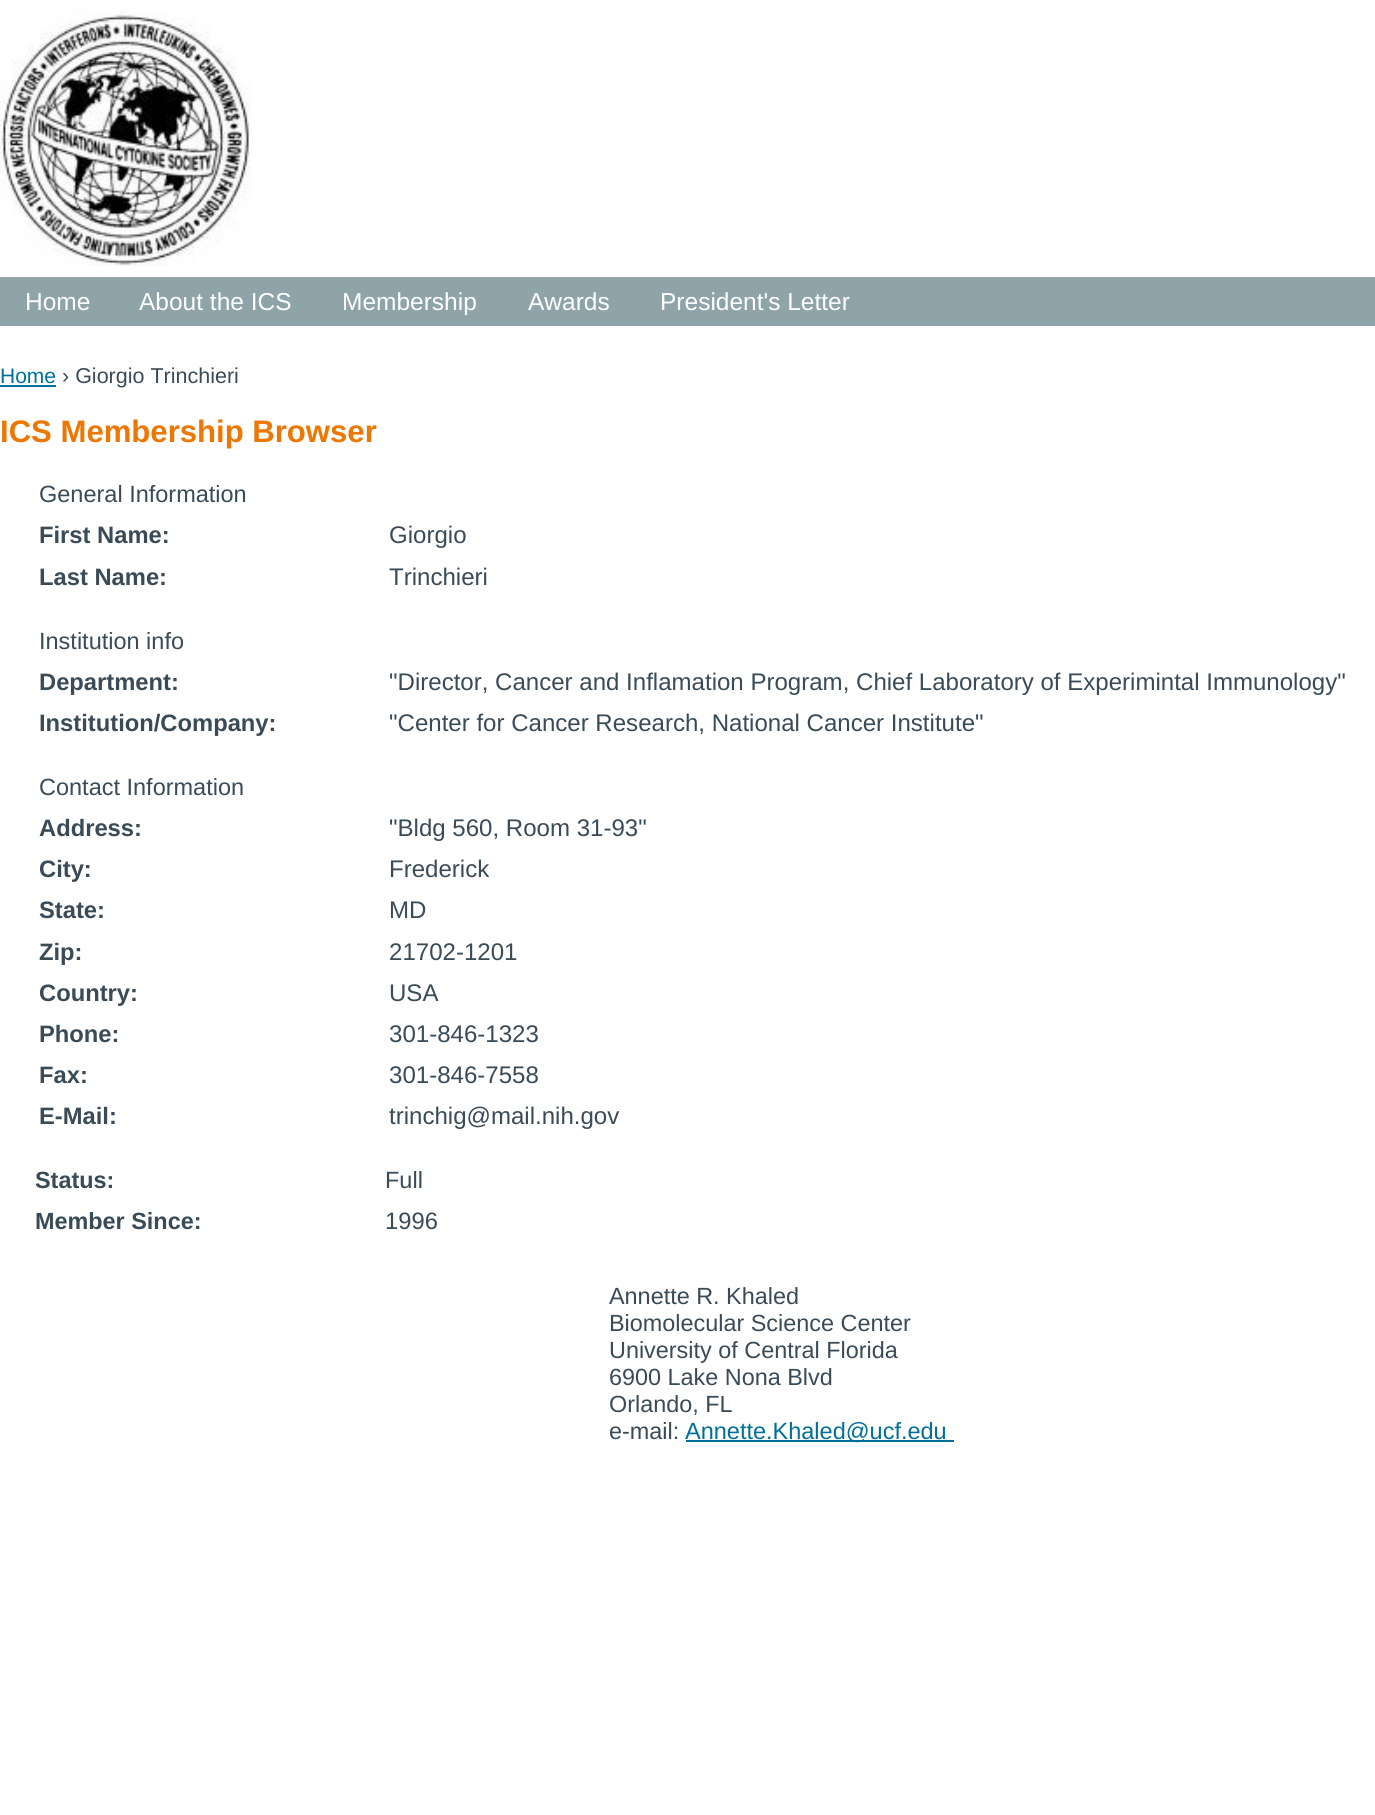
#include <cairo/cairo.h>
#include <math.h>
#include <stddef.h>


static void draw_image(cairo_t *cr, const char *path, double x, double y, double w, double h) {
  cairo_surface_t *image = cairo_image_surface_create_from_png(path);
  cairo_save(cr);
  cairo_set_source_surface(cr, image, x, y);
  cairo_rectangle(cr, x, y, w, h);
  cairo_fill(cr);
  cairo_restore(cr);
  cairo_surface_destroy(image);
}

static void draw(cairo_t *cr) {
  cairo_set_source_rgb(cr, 1, 1, 1);
  cairo_paint(cr);
  draw_image(cr, "images/1.png", 0, 10, 252, 256);
  cairo_set_source_rgb(cr, 143 / 255.0, 164 / 255.0, 168 / 255.0);
  cairo_rectangle(cr, 0, 277, 1375, 49);
  cairo_fill(cr);
  cairo_set_source_rgb(cr, 0, 112 / 255.0, 153 / 255.0);
  cairo_rectangle(cr, 0, 385, 56, 2);
  cairo_fill(cr);
  cairo_rectangle(cr, 686, 1440, 268, 2);
  cairo_fill(cr);
  cairo_select_font_face(cr, "Liberation Sans", CAIRO_FONT_SLANT_NORMAL, CAIRO_FONT_WEIGHT_NORMAL);
  cairo_set_font_size(cr, 24.5);
  cairo_set_source_rgb(cr, 1, 1, 1);
  cairo_move_to(cr, 25, 310);
  cairo_show_text(cr, "Home");
  cairo_move_to(cr, 139, 310);
  cairo_show_text(cr, "About the ICS");
  cairo_move_to(cr, 342, 310);
  cairo_show_text(cr, "Membership");
  cairo_move_to(cr, 528, 310);
  cairo_show_text(cr, "Awards");
  cairo_move_to(cr, 660, 310);
  cairo_show_text(cr, "President's Letter");
  cairo_set_font_size(cr, 21);
  cairo_set_source_rgb(cr, 0, 112 / 255.0, 153 / 255.0);
  cairo_move_to(cr, 0, 383);
  cairo_show_text(cr, "Home");
  cairo_set_font_size(cr, 21.5);
  cairo_set_source_rgb(cr, 58 / 255.0, 75 / 255.0, 88 / 255.0);
  cairo_move_to(cr, 62, 383);
  cairo_show_text(cr, "› Giorgio Trinchieri");
  cairo_select_font_face(cr, "Liberation Sans", CAIRO_FONT_SLANT_NORMAL, CAIRO_FONT_WEIGHT_BOLD);
  cairo_set_font_size(cr, 31.1);
  cairo_set_source_rgb(cr, 237 / 255.0, 119 / 255.0, 3 / 255.0);
  cairo_move_to(cr, 0, 442);
  cairo_show_text(cr, "ICS Membership Browser");
  cairo_select_font_face(cr, "Liberation Sans", CAIRO_FONT_SLANT_NORMAL, CAIRO_FONT_WEIGHT_NORMAL);
  cairo_set_font_size(cr, 23.5);
  cairo_set_source_rgb(cr, 58 / 255.0, 75 / 255.0, 88 / 255.0);
  cairo_move_to(cr, 39, 502);
  cairo_show_text(cr, "General Information");
  cairo_select_font_face(cr, "Liberation Sans", CAIRO_FONT_SLANT_NORMAL, CAIRO_FONT_WEIGHT_BOLD);
  cairo_set_font_size(cr, 23.75);
  cairo_move_to(cr, 39, 543);
  cairo_show_text(cr, "First Name:");
  cairo_select_font_face(cr, "Liberation Sans", CAIRO_FONT_SLANT_NORMAL, CAIRO_FONT_WEIGHT_NORMAL);
  cairo_set_font_size(cr, 24.05);
  cairo_move_to(cr, 389, 543);
  cairo_show_text(cr, "Giorgio");
  cairo_select_font_face(cr, "Liberation Sans", CAIRO_FONT_SLANT_NORMAL, CAIRO_FONT_WEIGHT_BOLD);
  cairo_set_font_size(cr, 23.75);
  cairo_move_to(cr, 39, 585);
  cairo_show_text(cr, "Last Name:");
  cairo_select_font_face(cr, "Liberation Sans", CAIRO_FONT_SLANT_NORMAL, CAIRO_FONT_WEIGHT_NORMAL);
  cairo_set_font_size(cr, 24.05);
  cairo_move_to(cr, 389, 585);
  cairo_show_text(cr, "Trinchieri");
  cairo_set_font_size(cr, 23.5);
  cairo_move_to(cr, 39, 649);
  cairo_show_text(cr, "Institution info");
  cairo_select_font_face(cr, "Liberation Sans", CAIRO_FONT_SLANT_NORMAL, CAIRO_FONT_WEIGHT_BOLD);
  cairo_set_font_size(cr, 23.75);
  cairo_move_to(cr, 39, 690);
  cairo_show_text(cr, "Department:");
  cairo_select_font_face(cr, "Liberation Sans", CAIRO_FONT_SLANT_NORMAL, CAIRO_FONT_WEIGHT_NORMAL);
  cairo_set_font_size(cr, 24.05);
  cairo_move_to(cr, 389, 690);
  cairo_show_text(cr, "\"Director, Cancer and Inflamation Program, Chief Laboratory of Experimintal Immunology\"");
  cairo_select_font_face(cr, "Liberation Sans", CAIRO_FONT_SLANT_NORMAL, CAIRO_FONT_WEIGHT_BOLD);
  cairo_set_font_size(cr, 23.75);
  cairo_move_to(cr, 39, 731);
  cairo_show_text(cr, "Institution/Company:");
  cairo_select_font_face(cr, "Liberation Sans", CAIRO_FONT_SLANT_NORMAL, CAIRO_FONT_WEIGHT_NORMAL);
  cairo_set_font_size(cr, 24.05);
  cairo_move_to(cr, 389, 731);
  cairo_show_text(cr, "\"Center for Cancer Research, National Cancer Institute\"");
  cairo_set_font_size(cr, 23.5);
  cairo_move_to(cr, 39, 795);
  cairo_show_text(cr, "Contact Information");
  cairo_select_font_face(cr, "Liberation Sans", CAIRO_FONT_SLANT_NORMAL, CAIRO_FONT_WEIGHT_BOLD);
  cairo_set_font_size(cr, 23.75);
  cairo_move_to(cr, 39, 836);
  cairo_show_text(cr, "Address:");
  cairo_select_font_face(cr, "Liberation Sans", CAIRO_FONT_SLANT_NORMAL, CAIRO_FONT_WEIGHT_NORMAL);
  cairo_set_font_size(cr, 24.05);
  cairo_move_to(cr, 389, 836);
  cairo_show_text(cr, "\"Bldg 560, Room 31-93\"");
  cairo_select_font_face(cr, "Liberation Sans", CAIRO_FONT_SLANT_NORMAL, CAIRO_FONT_WEIGHT_BOLD);
  cairo_set_font_size(cr, 23.75);
  cairo_move_to(cr, 39, 877);
  cairo_show_text(cr, "City:");
  cairo_select_font_face(cr, "Liberation Sans", CAIRO_FONT_SLANT_NORMAL, CAIRO_FONT_WEIGHT_NORMAL);
  cairo_set_font_size(cr, 24.05);
  cairo_move_to(cr, 389, 877);
  cairo_show_text(cr, "Frederick");
  cairo_select_font_face(cr, "Liberation Sans", CAIRO_FONT_SLANT_NORMAL, CAIRO_FONT_WEIGHT_BOLD);
  cairo_set_font_size(cr, 23.75);
  cairo_move_to(cr, 39, 918);
  cairo_show_text(cr, "State:");
  cairo_select_font_face(cr, "Liberation Sans", CAIRO_FONT_SLANT_NORMAL, CAIRO_FONT_WEIGHT_NORMAL);
  cairo_set_font_size(cr, 24.05);
  cairo_move_to(cr, 389, 918);
  cairo_show_text(cr, "MD");
  cairo_select_font_face(cr, "Liberation Sans", CAIRO_FONT_SLANT_NORMAL, CAIRO_FONT_WEIGHT_BOLD);
  cairo_set_font_size(cr, 23.75);
  cairo_move_to(cr, 39, 960);
  cairo_show_text(cr, "Zip:");
  cairo_select_font_face(cr, "Liberation Sans", CAIRO_FONT_SLANT_NORMAL, CAIRO_FONT_WEIGHT_NORMAL);
  cairo_set_font_size(cr, 24.05);
  cairo_move_to(cr, 389, 960);
  cairo_show_text(cr, "21702-1201");
  cairo_select_font_face(cr, "Liberation Sans", CAIRO_FONT_SLANT_NORMAL, CAIRO_FONT_WEIGHT_BOLD);
  cairo_set_font_size(cr, 23.75);
  cairo_move_to(cr, 39, 1001);
  cairo_show_text(cr, "Country:");
  cairo_select_font_face(cr, "Liberation Sans", CAIRO_FONT_SLANT_NORMAL, CAIRO_FONT_WEIGHT_NORMAL);
  cairo_set_font_size(cr, 24.05);
  cairo_move_to(cr, 389, 1001);
  cairo_show_text(cr, "USA");
  cairo_select_font_face(cr, "Liberation Sans", CAIRO_FONT_SLANT_NORMAL, CAIRO_FONT_WEIGHT_BOLD);
  cairo_set_font_size(cr, 23.75);
  cairo_move_to(cr, 39, 1042);
  cairo_show_text(cr, "Phone:");
  cairo_select_font_face(cr, "Liberation Sans", CAIRO_FONT_SLANT_NORMAL, CAIRO_FONT_WEIGHT_NORMAL);
  cairo_set_font_size(cr, 24.05);
  cairo_move_to(cr, 389, 1042);
  cairo_show_text(cr, "301-846-1323");
  cairo_select_font_face(cr, "Liberation Sans", CAIRO_FONT_SLANT_NORMAL, CAIRO_FONT_WEIGHT_BOLD);
  cairo_set_font_size(cr, 23.75);
  cairo_move_to(cr, 39, 1083);
  cairo_show_text(cr, "Fax:");
  cairo_select_font_face(cr, "Liberation Sans", CAIRO_FONT_SLANT_NORMAL, CAIRO_FONT_WEIGHT_NORMAL);
  cairo_set_font_size(cr, 24.05);
  cairo_move_to(cr, 389, 1083);
  cairo_show_text(cr, "301-846-7558");
  cairo_select_font_face(cr, "Liberation Sans", CAIRO_FONT_SLANT_NORMAL, CAIRO_FONT_WEIGHT_BOLD);
  cairo_set_font_size(cr, 23.75);
  cairo_move_to(cr, 39, 1124);
  cairo_show_text(cr, "E-Mail:");
  cairo_select_font_face(cr, "Liberation Sans", CAIRO_FONT_SLANT_NORMAL, CAIRO_FONT_WEIGHT_NORMAL);
  cairo_set_font_size(cr, 24.05);
  cairo_move_to(cr, 389, 1124);
  cairo_show_text(cr, "trinchig@mail.nih.gov");
  cairo_select_font_face(cr, "Liberation Sans", CAIRO_FONT_SLANT_NORMAL, CAIRO_FONT_WEIGHT_BOLD);
  cairo_set_font_size(cr, 23.4);
  cairo_move_to(cr, 35, 1188);
  cairo_show_text(cr, "Status:");
  cairo_select_font_face(cr, "Liberation Sans", CAIRO_FONT_SLANT_NORMAL, CAIRO_FONT_WEIGHT_NORMAL);
  cairo_set_font_size(cr, 23.5);
  cairo_move_to(cr, 385, 1188);
  cairo_show_text(cr, "Full");
  cairo_select_font_face(cr, "Liberation Sans", CAIRO_FONT_SLANT_NORMAL, CAIRO_FONT_WEIGHT_BOLD);
  cairo_set_font_size(cr, 23.4);
  cairo_move_to(cr, 35, 1229);
  cairo_show_text(cr, "Member Since:");
  cairo_select_font_face(cr, "Liberation Sans", CAIRO_FONT_SLANT_NORMAL, CAIRO_FONT_WEIGHT_NORMAL);
  cairo_set_font_size(cr, 23.75);
  cairo_move_to(cr, 385, 1229);
  cairo_show_text(cr, "1996");
  cairo_set_font_size(cr, 23.4);
  cairo_move_to(cr, 609, 1304);
  cairo_show_text(cr, "Annette R. Khaled");
  cairo_move_to(cr, 609, 1331);
  cairo_show_text(cr, "Biomolecular Science Center");
  cairo_move_to(cr, 609, 1358);
  cairo_show_text(cr, "University of Central Florida");
  cairo_move_to(cr, 609, 1385);
  cairo_show_text(cr, "6900 Lake Nona Blvd");
  cairo_move_to(cr, 609, 1412);
  cairo_show_text(cr, "Orlando, FL");
  cairo_move_to(cr, 609, 1439);
  cairo_show_text(cr, "e-mail:");
  cairo_set_font_size(cr, 23.5);
  cairo_set_source_rgb(cr, 0, 112 / 255.0, 153 / 255.0);
  cairo_move_to(cr, 685, 1439);
  cairo_show_text(cr, "Annette.Khaled@ucf.edu");
}

int main(void) {
  cairo_surface_t *surface = cairo_image_surface_create(CAIRO_FORMAT_RGB24, 1375, 1815);
  cairo_t *cr = cairo_create(surface);
  cairo_font_options_t *options = cairo_font_options_create();
  cairo_font_options_set_hint_metrics(options, CAIRO_HINT_METRICS_OFF);
  cairo_font_options_set_hint_style(options, CAIRO_HINT_STYLE_NONE);
  cairo_set_font_options(cr, options);
  cairo_set_miter_limit(cr, 4);
  draw(cr);
  cairo_surface_write_to_png(surface, "out.png");
  cairo_font_options_destroy(options);
  cairo_destroy(cr);
  cairo_surface_destroy(surface);
  return 0;
}
